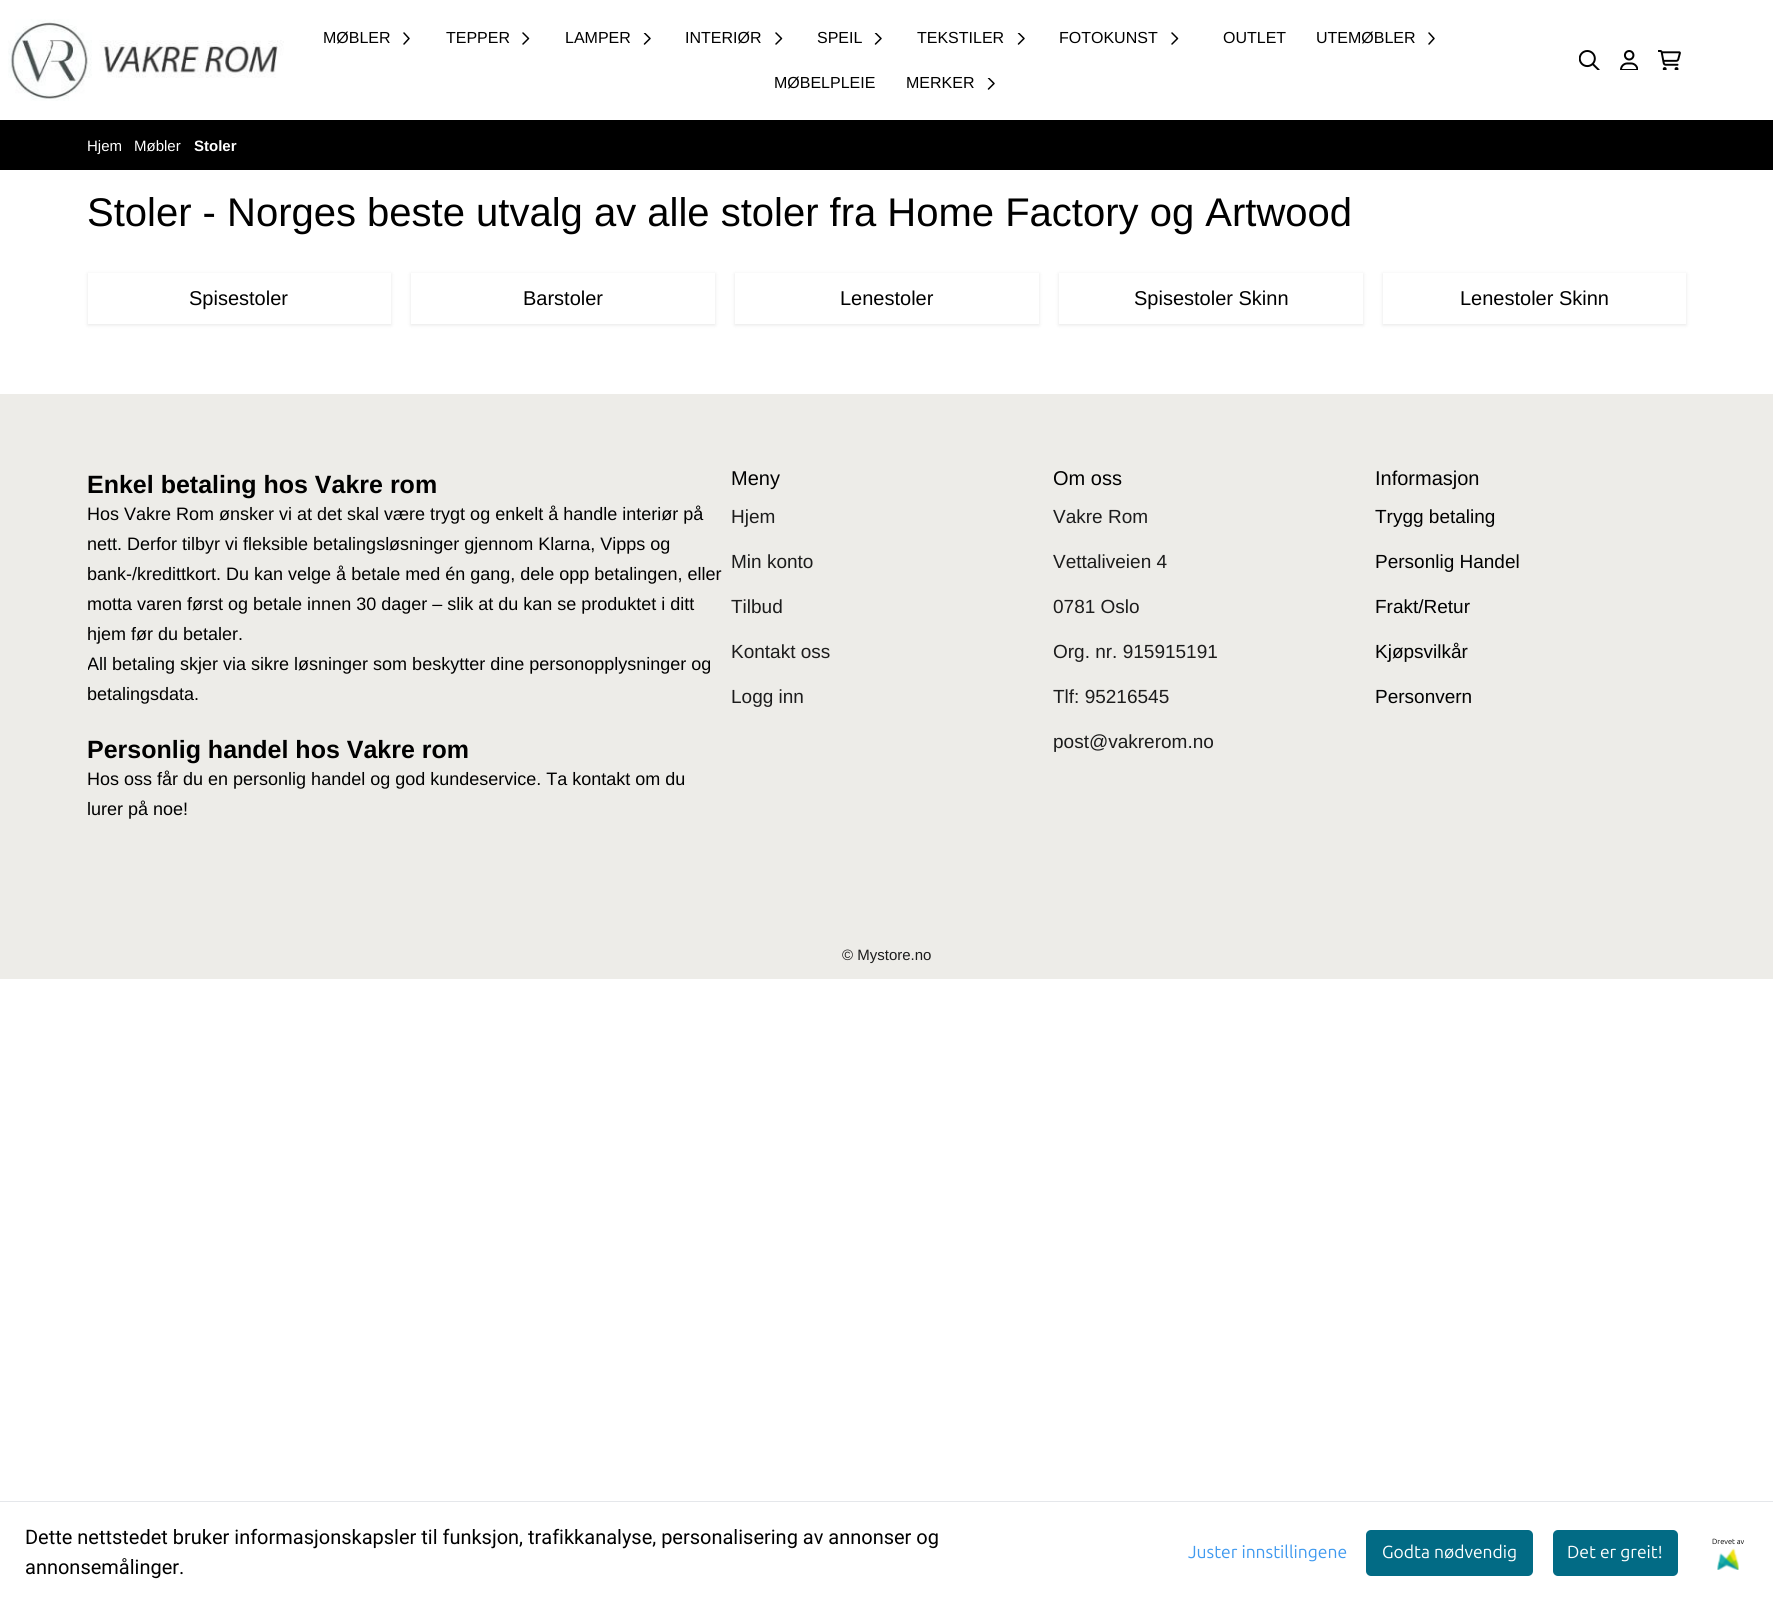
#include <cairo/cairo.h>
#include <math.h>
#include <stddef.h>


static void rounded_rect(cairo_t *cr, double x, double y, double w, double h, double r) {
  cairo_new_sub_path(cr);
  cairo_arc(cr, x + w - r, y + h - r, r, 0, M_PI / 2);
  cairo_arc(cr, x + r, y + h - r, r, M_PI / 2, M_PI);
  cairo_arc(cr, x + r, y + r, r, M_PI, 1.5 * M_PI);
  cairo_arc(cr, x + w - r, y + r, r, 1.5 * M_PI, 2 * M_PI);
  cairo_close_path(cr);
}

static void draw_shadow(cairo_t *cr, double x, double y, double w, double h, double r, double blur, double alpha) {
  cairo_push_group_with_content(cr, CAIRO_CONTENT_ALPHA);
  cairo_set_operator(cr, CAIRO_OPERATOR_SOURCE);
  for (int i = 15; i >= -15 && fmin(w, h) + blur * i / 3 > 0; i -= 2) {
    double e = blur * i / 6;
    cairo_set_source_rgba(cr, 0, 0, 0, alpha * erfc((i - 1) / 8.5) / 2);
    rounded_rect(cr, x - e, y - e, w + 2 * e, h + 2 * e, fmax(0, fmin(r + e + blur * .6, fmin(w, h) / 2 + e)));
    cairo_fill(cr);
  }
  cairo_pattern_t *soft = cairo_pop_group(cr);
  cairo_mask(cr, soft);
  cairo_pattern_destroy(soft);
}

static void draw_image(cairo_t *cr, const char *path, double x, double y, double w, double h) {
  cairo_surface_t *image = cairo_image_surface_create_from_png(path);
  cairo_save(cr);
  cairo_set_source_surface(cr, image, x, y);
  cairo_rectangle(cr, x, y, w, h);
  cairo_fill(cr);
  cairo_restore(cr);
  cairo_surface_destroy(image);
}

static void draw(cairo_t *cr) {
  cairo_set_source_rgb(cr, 1, 1, 1);
  cairo_paint(cr);
  draw_image(cr, "images/1.png", 8, 19, 276, 82);
  cairo_new_path(cr);
  cairo_move_to(cr, 404, 33);
  cairo_line_to(cr, 409, 38.5);
  cairo_line_to(cr, 404, 44);
  cairo_set_source_rgb(cr, 0, 0, 0);
  cairo_set_line_width(cr, 1.5);
  cairo_set_line_cap(cr, CAIRO_LINE_CAP_ROUND);
  cairo_set_line_join(cr, CAIRO_LINE_JOIN_ROUND);
  cairo_stroke(cr);
  cairo_new_path(cr);
  cairo_move_to(cr, 523, 33);
  cairo_line_to(cr, 528.5, 38.5);
  cairo_line_to(cr, 523, 44);
  cairo_stroke(cr);
  cairo_save(cr);
  cairo_rectangle(cr, 640, 33, 15, 15);
  cairo_clip(cr);
  cairo_new_path(cr);
  cairo_move_to(cr, 644.5, 33);
  cairo_line_to(cr, 650, 38.5);
  cairo_line_to(cr, 644.5, 44);
  cairo_stroke(cr);
  cairo_restore(cr);
  cairo_new_path(cr);
  cairo_move_to(cr, 776, 33);
  cairo_line_to(cr, 781.5, 38.5);
  cairo_line_to(cr, 776, 44);
  cairo_stroke(cr);
  cairo_save(cr);
  cairo_rectangle(cr, 873, 33, 15, 15);
  cairo_clip(cr);
  cairo_new_path(cr);
  cairo_move_to(cr, 875.5, 33);
  cairo_line_to(cr, 881, 38.5);
  cairo_line_to(cr, 875.5, 44);
  cairo_stroke(cr);
  cairo_restore(cr);
  cairo_save(cr);
  cairo_rectangle(cr, 1014, 33, 15, 15);
  cairo_clip(cr);
  cairo_new_path(cr);
  cairo_move_to(cr, 1018.5, 33);
  cairo_line_to(cr, 1024, 38.5);
  cairo_line_to(cr, 1018.5, 44);
  cairo_stroke(cr);
  cairo_restore(cr);
  cairo_new_path(cr);
  cairo_move_to(cr, 1172, 33);
  cairo_line_to(cr, 1177.5, 38.5);
  cairo_line_to(cr, 1172, 44);
  cairo_stroke(cr);
  cairo_new_path(cr);
  cairo_move_to(cr, 1429, 33);
  cairo_line_to(cr, 1434, 38.5);
  cairo_line_to(cr, 1429, 44);
  cairo_stroke(cr);
  cairo_save(cr);
  cairo_rectangle(cr, 984, 78, 15, 15);
  cairo_clip(cr);
  cairo_new_path(cr);
  cairo_move_to(cr, 988.5, 78);
  cairo_line_to(cr, 994, 83.5);
  cairo_line_to(cr, 988.5, 89);
  cairo_stroke(cr);
  cairo_restore(cr);
  draw_image(cr, "images/2.png", 1579, 50, 21, 20);
  draw_image(cr, "images/3.png", 1620, 50, 18, 20);
  draw_image(cr, "images/4.png", 1658, 50, 23, 20);
  cairo_rectangle(cr, 0, 120, 1773, 50);
  cairo_fill(cr);
  cairo_save(cr);
  cairo_set_fill_rule(cr, CAIRO_FILL_RULE_EVEN_ODD);
  cairo_new_path(cr);
  cairo_move_to(cr, 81, 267);
  cairo_line_to(cr, 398, 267);
  cairo_line_to(cr, 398, 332);
  cairo_line_to(cr, 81, 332);
  cairo_close_path(cr);
  cairo_move_to(cr, 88, 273);
  cairo_line_to(cr, 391, 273);
  cairo_line_to(cr, 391, 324);
  cairo_line_to(cr, 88, 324);
  cairo_close_path(cr);
  cairo_clip(cr);
  cairo_set_source_rgb(cr, 0, 0, 0);
  draw_shadow(cr, 88, 274, 303, 51, 0, 2, 0.1);
  cairo_restore(cr);
  cairo_save(cr);
  cairo_set_fill_rule(cr, CAIRO_FILL_RULE_EVEN_ODD);
  cairo_new_path(cr);
  cairo_move_to(cr, 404, 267);
  cairo_line_to(cr, 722, 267);
  cairo_line_to(cr, 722, 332);
  cairo_line_to(cr, 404, 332);
  cairo_close_path(cr);
  cairo_move_to(cr, 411, 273);
  cairo_line_to(cr, 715, 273);
  cairo_line_to(cr, 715, 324);
  cairo_line_to(cr, 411, 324);
  cairo_close_path(cr);
  cairo_clip(cr);
  cairo_set_source_rgb(cr, 0, 0, 0);
  draw_shadow(cr, 411, 274, 304, 51, 0, 2, 0.1);
  cairo_restore(cr);
  cairo_save(cr);
  cairo_set_fill_rule(cr, CAIRO_FILL_RULE_EVEN_ODD);
  cairo_new_path(cr);
  cairo_move_to(cr, 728, 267);
  cairo_line_to(cr, 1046, 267);
  cairo_line_to(cr, 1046, 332);
  cairo_line_to(cr, 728, 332);
  cairo_close_path(cr);
  cairo_move_to(cr, 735, 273);
  cairo_line_to(cr, 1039, 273);
  cairo_line_to(cr, 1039, 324);
  cairo_line_to(cr, 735, 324);
  cairo_close_path(cr);
  cairo_clip(cr);
  cairo_set_source_rgb(cr, 0, 0, 0);
  draw_shadow(cr, 735, 274, 304, 51, 0, 2, 0.1);
  cairo_restore(cr);
  cairo_save(cr);
  cairo_set_fill_rule(cr, CAIRO_FILL_RULE_EVEN_ODD);
  cairo_new_path(cr);
  cairo_move_to(cr, 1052, 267);
  cairo_line_to(cr, 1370, 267);
  cairo_line_to(cr, 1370, 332);
  cairo_line_to(cr, 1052, 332);
  cairo_close_path(cr);
  cairo_move_to(cr, 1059, 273);
  cairo_line_to(cr, 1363, 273);
  cairo_line_to(cr, 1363, 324);
  cairo_line_to(cr, 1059, 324);
  cairo_close_path(cr);
  cairo_clip(cr);
  cairo_set_source_rgb(cr, 0, 0, 0);
  draw_shadow(cr, 1059, 274, 304, 51, 0, 2, 0.1);
  cairo_restore(cr);
  cairo_save(cr);
  cairo_set_fill_rule(cr, CAIRO_FILL_RULE_EVEN_ODD);
  cairo_new_path(cr);
  cairo_move_to(cr, 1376, 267);
  cairo_line_to(cr, 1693, 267);
  cairo_line_to(cr, 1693, 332);
  cairo_line_to(cr, 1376, 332);
  cairo_close_path(cr);
  cairo_move_to(cr, 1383, 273);
  cairo_line_to(cr, 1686, 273);
  cairo_line_to(cr, 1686, 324);
  cairo_line_to(cr, 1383, 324);
  cairo_close_path(cr);
  cairo_clip(cr);
  cairo_set_source_rgb(cr, 0, 0, 0);
  draw_shadow(cr, 1383, 274, 303, 51, 0, 2, 0.1);
  cairo_restore(cr);
  cairo_set_source_rgb(cr, 237 / 255.0, 236 / 255.0, 232 / 255.0);
  cairo_rectangle(cr, 0, 394, 1773, 585);
  cairo_fill(cr);
  cairo_set_source_rgb(cr, 229 / 255.0, 231 / 255.0, 235 / 255.0);
  cairo_rectangle(cr, 0, 1501, 1773, 1);
  cairo_fill(cr);
  draw_image(cr, "images/5.png", 1717, 1548, 22, 22);
  cairo_set_source_rgb(cr, 2 / 255.0, 107 / 255.0, 133 / 255.0);
  rounded_rect(cr, 1366, 1530, 167, 46, 5);
  cairo_fill(cr);
  rounded_rect(cr, 1553, 1530, 125, 46, 5);
  cairo_fill(cr);
  cairo_select_font_face(cr, "Liberation Sans", CAIRO_FONT_SLANT_NORMAL, CAIRO_FONT_WEIGHT_NORMAL);
  cairo_set_font_size(cr, 16);
  cairo_set_source_rgb(cr, 0, 0, 0);
  cairo_move_to(cr, 323, 43);
  cairo_show_text(cr, "MØBLER");
  cairo_move_to(cr, 446, 43);
  cairo_show_text(cr, "TEPPER");
  cairo_move_to(cr, 565, 43);
  cairo_show_text(cr, "LAMPER");
  cairo_move_to(cr, 685, 43);
  cairo_show_text(cr, "INTERIØR");
  cairo_move_to(cr, 817, 43);
  cairo_show_text(cr, "SPEIL");
  cairo_move_to(cr, 917, 43);
  cairo_show_text(cr, "TEKSTILER");
  cairo_move_to(cr, 1059, 43);
  cairo_show_text(cr, "FOTOKUNST");
  cairo_move_to(cr, 1223, 43);
  cairo_show_text(cr, "OUTLET");
  cairo_move_to(cr, 1316, 43);
  cairo_show_text(cr, "UTEMØBLER");
  cairo_move_to(cr, 774, 88);
  cairo_show_text(cr, "MØBELPLEIE");
  cairo_move_to(cr, 906, 88);
  cairo_show_text(cr, "MERKER");
  cairo_set_font_size(cr, 15);
  cairo_set_source_rgb(cr, 1, 1, 1);
  cairo_move_to(cr, 87, 151);
  cairo_show_text(cr, "Hjem");
  cairo_move_to(cr, 134, 151);
  cairo_show_text(cr, "Møbler");
  cairo_select_font_face(cr, "Liberation Sans", CAIRO_FONT_SLANT_NORMAL, CAIRO_FONT_WEIGHT_BOLD);
  cairo_move_to(cr, 194, 151);
  cairo_show_text(cr, "Stoler");
  cairo_select_font_face(cr, "Liberation Sans", CAIRO_FONT_SLANT_NORMAL, CAIRO_FONT_WEIGHT_NORMAL);
  cairo_set_font_size(cr, 40);
  cairo_set_source_rgb(cr, 0, 0, 0);
  cairo_move_to(cr, 87, 226);
  cairo_show_text(cr, "Stoler - Norges beste utvalg av alle stoler fra Home Factory og Artwood");
  cairo_set_font_size(cr, 20);
  cairo_move_to(cr, 189, 305);
  cairo_show_text(cr, "Spisestoler");
  cairo_move_to(cr, 523, 305);
  cairo_show_text(cr, "Barstoler");
  cairo_move_to(cr, 840, 305);
  cairo_show_text(cr, "Lenestoler");
  cairo_move_to(cr, 1134, 305);
  cairo_show_text(cr, "Spisestoler Skinn");
  cairo_move_to(cr, 1460, 305);
  cairo_show_text(cr, "Lenestoler Skinn");
  cairo_select_font_face(cr, "Liberation Sans", CAIRO_FONT_SLANT_NORMAL, CAIRO_FONT_WEIGHT_BOLD);
  cairo_set_font_size(cr, 25);
  cairo_move_to(cr, 87, 493);
  cairo_show_text(cr, "Enkel betaling hos Vakre rom");
  cairo_select_font_face(cr, "Liberation Sans", CAIRO_FONT_SLANT_NORMAL, CAIRO_FONT_WEIGHT_NORMAL);
  cairo_set_font_size(cr, 18);
  cairo_move_to(cr, 87, 520);
  cairo_show_text(cr, "Hos Vakre Rom ønsker vi at det skal være trygt og enkelt å handle interiør på");
  cairo_move_to(cr, 87, 550);
  cairo_show_text(cr, "nett. Derfor tilbyr vi fleksible betalingsløsninger gjennom Klarna, Vipps og");
  cairo_move_to(cr, 87, 580);
  cairo_show_text(cr, "bank-/kredittkort. Du kan velge å betale med én gang, dele opp betalingen, eller");
  cairo_move_to(cr, 87, 610);
  cairo_show_text(cr, "motta varen først og betale innen 30 dager – slik at du kan se produktet i ditt");
  cairo_move_to(cr, 87, 640);
  cairo_show_text(cr, "hjem før du betaler.");
  cairo_save(cr);
  cairo_rectangle(cr, 88, 464, 633, 385);
  cairo_clip(cr);
  cairo_move_to(cr, 87, 670);
  cairo_show_text(cr, "All betaling skjer via sikre løsninger som beskytter dine personopplysninger og");
  cairo_restore(cr);
  cairo_move_to(cr, 87, 700);
  cairo_show_text(cr, "betalingsdata.");
  cairo_select_font_face(cr, "Liberation Sans", CAIRO_FONT_SLANT_NORMAL, CAIRO_FONT_WEIGHT_BOLD);
  cairo_set_font_size(cr, 25);
  cairo_move_to(cr, 87, 758);
  cairo_show_text(cr, "Personlig handel hos Vakre rom");
  cairo_select_font_face(cr, "Liberation Sans", CAIRO_FONT_SLANT_NORMAL, CAIRO_FONT_WEIGHT_NORMAL);
  cairo_set_font_size(cr, 18);
  cairo_move_to(cr, 87, 785);
  cairo_show_text(cr, "Hos oss får du en personlig handel og god kundeservice. Ta kontakt om du");
  cairo_move_to(cr, 87, 815);
  cairo_show_text(cr, "lurer på noe!");
  cairo_set_font_size(cr, 20);
  cairo_move_to(cr, 731, 485);
  cairo_show_text(cr, "Meny");
  cairo_set_font_size(cr, 19);
  cairo_set_source_rgb(cr, 28 / 255.0, 28 / 255.0, 28 / 255.0);
  cairo_move_to(cr, 731, 523);
  cairo_show_text(cr, "Hjem");
  cairo_move_to(cr, 731, 568);
  cairo_show_text(cr, "Min konto");
  cairo_move_to(cr, 731, 613);
  cairo_show_text(cr, "Tilbud");
  cairo_move_to(cr, 731, 658);
  cairo_show_text(cr, "Kontakt oss");
  cairo_move_to(cr, 731, 703);
  cairo_show_text(cr, "Logg inn");
  cairo_set_font_size(cr, 20);
  cairo_set_source_rgb(cr, 0, 0, 0);
  cairo_move_to(cr, 1053, 485);
  cairo_show_text(cr, "Om oss");
  cairo_set_font_size(cr, 19);
  cairo_set_source_rgb(cr, 28 / 255.0, 28 / 255.0, 28 / 255.0);
  cairo_move_to(cr, 1053, 523);
  cairo_show_text(cr, "Vakre Rom");
  cairo_move_to(cr, 1053, 568);
  cairo_show_text(cr, "Vettaliveien 4");
  cairo_move_to(cr, 1053, 613);
  cairo_show_text(cr, "0781 Oslo");
  cairo_move_to(cr, 1053, 658);
  cairo_show_text(cr, "Org. nr. 915915191");
  cairo_move_to(cr, 1053, 703);
  cairo_show_text(cr, "Tlf: 95216545");
  cairo_move_to(cr, 1053, 748);
  cairo_show_text(cr, "post@vakrerom.no");
  cairo_set_font_size(cr, 20);
  cairo_set_source_rgb(cr, 0, 0, 0);
  cairo_move_to(cr, 1375, 485);
  cairo_show_text(cr, "Informasjon");
  cairo_set_font_size(cr, 19);
  cairo_move_to(cr, 1375, 523);
  cairo_show_text(cr, "Trygg betaling");
  cairo_move_to(cr, 1375, 568);
  cairo_show_text(cr, "Personlig Handel");
  cairo_move_to(cr, 1375, 613);
  cairo_show_text(cr, "Frakt/Retur");
  cairo_move_to(cr, 1375, 658);
  cairo_show_text(cr, "Kjøpsvilkår");
  cairo_move_to(cr, 1375, 703);
  cairo_show_text(cr, "Personvern");
  cairo_set_font_size(cr, 15);
  cairo_set_source_rgb(cr, 28 / 255.0, 28 / 255.0, 28 / 255.0);
  cairo_move_to(cr, 842, 960);
  cairo_show_text(cr, "© Mystore.no");
  cairo_select_font_face(cr, "Roboto", CAIRO_FONT_SLANT_NORMAL, CAIRO_FONT_WEIGHT_NORMAL);
  cairo_set_font_size(cr, 20);
  cairo_set_source_rgb(cr, 0, 0, 0);
  cairo_move_to(cr, 25, 1544);
  cairo_show_text(cr, "Dette nettstedet bruker informasjonskapsler til funksjon, trafikkanalyse, personalisering av annonser og");
  cairo_move_to(cr, 25, 1574);
  cairo_show_text(cr, "annonsemålinger.");
  cairo_select_font_face(cr, "Ubuntu", CAIRO_FONT_SLANT_NORMAL, CAIRO_FONT_WEIGHT_NORMAL);
  cairo_set_font_size(cr, 7.5);
  cairo_move_to(cr, 1712, 1544);
  cairo_show_text(cr, "Drevet av");
  cairo_set_font_size(cr, 17.5);
  cairo_set_source_rgb(cr, 64 / 255.0, 154 / 255.0, 239 / 255.0);
  cairo_move_to(cr, 1188, 1558);
  cairo_show_text(cr, "Juster innstillingene");
  cairo_set_source_rgb(cr, 1, 1, 1);
  cairo_move_to(cr, 1382, 1558);
  cairo_show_text(cr, "Godta nødvendig");
  cairo_move_to(cr, 1567, 1558);
  cairo_show_text(cr, "Det er greit!");
}

int main(void) {
  cairo_surface_t *surface = cairo_image_surface_create(CAIRO_FORMAT_RGB24, 1773, 1602);
  cairo_t *cr = cairo_create(surface);
  cairo_font_options_t *options = cairo_font_options_create();
  cairo_font_options_set_hint_metrics(options, CAIRO_HINT_METRICS_OFF);
  cairo_font_options_set_hint_style(options, CAIRO_HINT_STYLE_NONE);
  cairo_set_font_options(cr, options);
  cairo_set_miter_limit(cr, 4);
  draw(cr);
  cairo_surface_write_to_png(surface, "out.png");
  cairo_font_options_destroy(options);
  cairo_destroy(cr);
  cairo_surface_destroy(surface);
  return 0;
}
